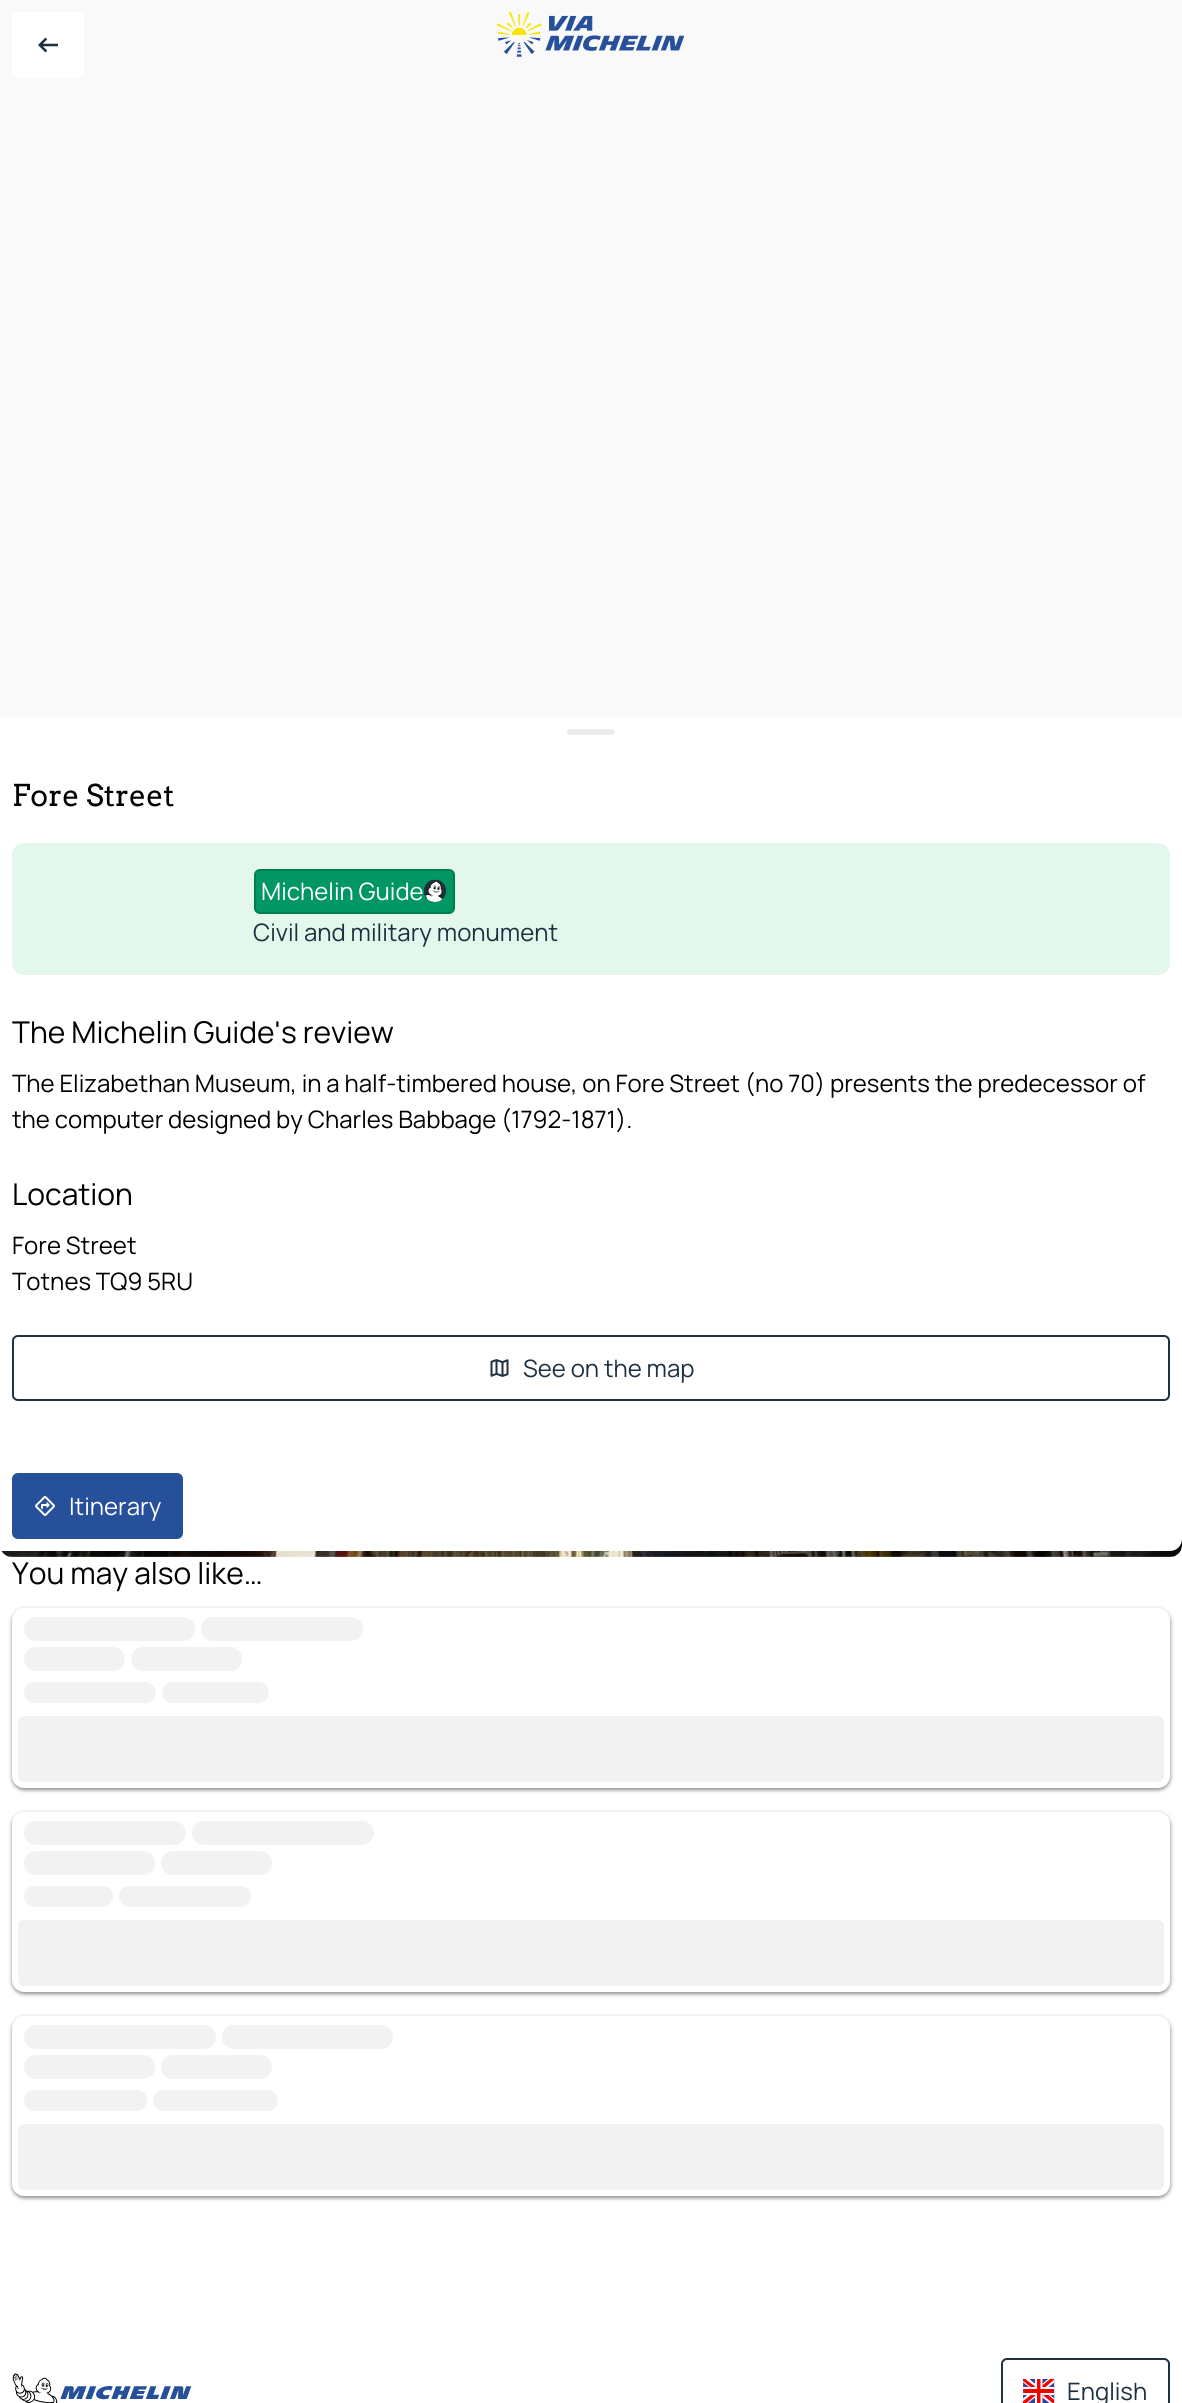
#include <cairo/cairo.h>
#include <math.h>
#include <stddef.h>


static void rounded_rect(cairo_t *cr, double x, double y, double w, double h, double r) {
  cairo_new_sub_path(cr);
  cairo_arc(cr, x + w - r, y + h - r, r, 0, M_PI / 2);
  cairo_arc(cr, x + r, y + h - r, r, M_PI / 2, M_PI);
  cairo_arc(cr, x + r, y + r, r, M_PI, 1.5 * M_PI);
  cairo_arc(cr, x + w - r, y + r, r, 1.5 * M_PI, 2 * M_PI);
  cairo_close_path(cr);
}

static void draw_shadow(cairo_t *cr, double x, double y, double w, double h, double r, double blur, double alpha) {
  cairo_push_group_with_content(cr, CAIRO_CONTENT_ALPHA);
  cairo_set_operator(cr, CAIRO_OPERATOR_SOURCE);
  for (int i = 15; i >= -15 && fmin(w, h) + blur * i / 3 > 0; i -= 2) {
    double e = blur * i / 6;
    cairo_set_source_rgba(cr, 0, 0, 0, alpha * erfc((i - 1) / 8.5) / 2);
    rounded_rect(cr, x - e, y - e, w + 2 * e, h + 2 * e, fmax(0, fmin(r + e + blur * .6, fmin(w, h) / 2 + e)));
    cairo_fill(cr);
  }
  cairo_pattern_t *soft = cairo_pop_group(cr);
  cairo_mask(cr, soft);
  cairo_pattern_destroy(soft);
}

static void draw_image(cairo_t *cr, const char *path, double x, double y, double w, double h) {
  cairo_surface_t *image = cairo_image_surface_create_from_png(path);
  cairo_save(cr);
  cairo_set_source_surface(cr, image, x, y);
  cairo_rectangle(cr, x, y, w, h);
  cairo_fill(cr);
  cairo_restore(cr);
  cairo_surface_destroy(image);
}

static void draw(cairo_t *cr) {
  cairo_set_source_rgb(cr, 249 / 255.0, 249 / 255.0, 249 / 255.0);
  cairo_paint(cr);
  draw_image(cr, "images/1.png", 497, 12, 188, 45);
  cairo_set_source_rgb(cr, 1, 1, 1);
  rounded_rect(cr, 12, 12, 72, 66, 6);
  cairo_fill(cr);
  draw_image(cr, "images/2.png", 38, 37, 20, 16);
  cairo_rectangle(cr, 0, 717, 1182, 1686);
  cairo_fill(cr);
  draw_image(cr, "images/6.png", 1, 1539, 1181, 18);
  rounded_rect(cr, 0, 717, 1182, 834, 12);
  cairo_fill(cr);
  cairo_set_source_rgb(cr, 236 / 255.0, 236 / 255.0, 236 / 255.0);
  rounded_rect(cr, 567, 729, 48, 6, 3);
  cairo_fill(cr);
  cairo_set_source_rgb(cr, 227 / 255.0, 247 / 255.0, 237 / 255.0);
  rounded_rect(cr, 12, 843, 1158, 132, 12);
  cairo_fill(cr);
  cairo_set_source_rgb(cr, 0, 151 / 255.0, 100 / 255.0);
  rounded_rect(cr, 255, 870, 199, 43, 5);
  cairo_fill_preserve(cr);
  cairo_set_source_rgb(cr, 0, 126 / 255.0, 83 / 255.0);
  cairo_stroke(cr);
  draw_image(cr, "images/3.png", 423, 879, 24, 23);
  rounded_rect(cr, 13, 1336, 1156, 64, 5);
  cairo_set_source_rgb(cr, 29 / 255.0, 49 / 255.0, 64 / 255.0);
  cairo_stroke(cr);
  draw_image(cr, "images/4.png", 490, 1359, 19, 18);
  cairo_set_source_rgb(cr, 1, 1, 1);
  cairo_rectangle(cr, 1, 1543, 11, 8);
  cairo_fill(cr);
  cairo_set_source_rgb(cr, 39 / 255.0, 80 / 255.0, 155 / 255.0);
  rounded_rect(cr, 12, 1473, 171, 66, 6);
  cairo_fill(cr);
  draw_image(cr, "images/5.png", 35, 1496, 20, 20);
  cairo_set_source_rgb(cr, 0, 0, 0);
  draw_shadow(cr, 12, 1610, 1158, 180, 12, 1.5, 0.3);
  draw_shadow(cr, 11, 1608, 1161, 183, 14, 2, 0.15);
  cairo_set_source_rgb(cr, 1, 1, 1);
  rounded_rect(cr, 12, 1608, 1158, 180, 12);
  cairo_fill(cr);
  cairo_set_source_rgb(cr, 242 / 255.0, 242 / 255.0, 242 / 255.0);
  rounded_rect(cr, 24, 1617, 171, 24, 12);
  cairo_fill(cr);
  rounded_rect(cr, 201, 1617, 162, 24, 12);
  cairo_fill(cr);
  rounded_rect(cr, 24, 1647, 101, 24, 12);
  cairo_fill(cr);
  rounded_rect(cr, 131, 1647, 111, 24, 12);
  cairo_fill(cr);
  rounded_rect(cr, 24, 1682, 132, 21, 10.5);
  cairo_fill(cr);
  rounded_rect(cr, 162, 1682, 107, 21, 10.5);
  cairo_fill(cr);
  rounded_rect(cr, 18, 1716, 1146, 66, 6);
  cairo_fill(cr);
  cairo_set_source_rgb(cr, 0, 0, 0);
  draw_shadow(cr, 12, 1814, 1158, 180, 12, 1.5, 0.3);
  draw_shadow(cr, 11, 1812, 1161, 183, 14, 2, 0.15);
  cairo_set_source_rgb(cr, 1, 1, 1);
  rounded_rect(cr, 12, 1812, 1158, 180, 12);
  cairo_fill(cr);
  cairo_set_source_rgb(cr, 242 / 255.0, 242 / 255.0, 242 / 255.0);
  rounded_rect(cr, 24, 1821, 162, 24, 12);
  cairo_fill(cr);
  rounded_rect(cr, 192, 1821, 182, 24, 12);
  cairo_fill(cr);
  rounded_rect(cr, 24, 1851, 131, 24, 12);
  cairo_fill(cr);
  rounded_rect(cr, 161, 1851, 111, 24, 12);
  cairo_fill(cr);
  rounded_rect(cr, 24, 1886, 89, 21, 10.5);
  cairo_fill(cr);
  rounded_rect(cr, 119, 1886, 132, 21, 10.5);
  cairo_fill(cr);
  rounded_rect(cr, 18, 1920, 1146, 66, 6);
  cairo_fill(cr);
  cairo_set_source_rgb(cr, 0, 0, 0);
  draw_shadow(cr, 12, 2018, 1158, 180, 12, 1.5, 0.3);
  draw_shadow(cr, 11, 2016, 1161, 183, 14, 2, 0.15);
  cairo_set_source_rgb(cr, 1, 1, 1);
  rounded_rect(cr, 12, 2016, 1158, 180, 12);
  cairo_fill(cr);
  cairo_set_source_rgb(cr, 242 / 255.0, 242 / 255.0, 242 / 255.0);
  rounded_rect(cr, 24, 2025, 192, 24, 12);
  cairo_fill(cr);
  rounded_rect(cr, 222, 2025, 171, 24, 12);
  cairo_fill(cr);
  rounded_rect(cr, 24, 2055, 131, 24, 12);
  cairo_fill(cr);
  rounded_rect(cr, 161, 2055, 111, 24, 12);
  cairo_fill(cr);
  rounded_rect(cr, 24, 2090, 123, 21, 10.5);
  cairo_fill(cr);
  rounded_rect(cr, 153, 2090, 125, 21, 10.5);
  cairo_fill(cr);
  rounded_rect(cr, 18, 2124, 1146, 66, 6);
  cairo_fill(cr);
  draw_image(cr, "images/7.png", 12, 2373, 180, 30);
  rounded_rect(cr, 1002, 2359, 167, 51, 5);
  cairo_set_source_rgb(cr, 29 / 255.0, 49 / 255.0, 64 / 255.0);
  cairo_stroke(cr);
  draw_image(cr, "images/8.png", 1023, 2379, 32, 24);
  cairo_select_font_face(cr, "Arvo", CAIRO_FONT_SLANT_NORMAL, CAIRO_FONT_WEIGHT_NORMAL);
  cairo_set_font_size(cr, 30);
  cairo_set_source_rgb(cr, 0, 0, 0);
  cairo_move_to(cr, 12, 806);
  cairo_show_text(cr, "Fore Street");
  cairo_select_font_face(cr, "Manrope ExtraLight", CAIRO_FONT_SLANT_NORMAL, CAIRO_FONT_WEIGHT_NORMAL);
  cairo_set_font_size(cr, 24);
  cairo_set_source_rgb(cr, 1, 1, 1);
  cairo_move_to(cr, 261, 900);
  cairo_show_text(cr, "Michelin Guide");
  cairo_set_source_rgb(cr, 29 / 255.0, 49 / 255.0, 64 / 255.0);
  cairo_move_to(cr, 253, 941);
  cairo_show_text(cr, "Civil and military monument");
  cairo_set_font_size(cr, 30);
  cairo_set_source_rgb(cr, 0, 0, 0);
  cairo_move_to(cr, 12, 1043);
  cairo_show_text(cr, "The Michelin Guide's review");
  cairo_set_font_size(cr, 24);
  cairo_move_to(cr, 12, 1092);
  cairo_show_text(cr, "The Elizabethan Museum, in a half-timbered house, on Fore Street (no 70) presents the predecessor of");
  cairo_move_to(cr, 12, 1128);
  cairo_show_text(cr, "the computer designed by Charles Babbage (1792-1871).");
  cairo_set_font_size(cr, 30);
  cairo_move_to(cr, 12, 1205);
  cairo_show_text(cr, "Location");
  cairo_set_font_size(cr, 24);
  cairo_move_to(cr, 12, 1254);
  cairo_show_text(cr, "Fore Street");
  cairo_move_to(cr, 12, 1290);
  cairo_show_text(cr, "Totnes TQ9 5RU");
  cairo_set_source_rgb(cr, 29 / 255.0, 49 / 255.0, 64 / 255.0);
  cairo_move_to(cr, 523, 1377);
  cairo_show_text(cr, "See on the map");
  cairo_set_source_rgb(cr, 1, 1, 1);
  cairo_move_to(cr, 69, 1515);
  cairo_show_text(cr, "Itinerary");
  cairo_set_font_size(cr, 30);
  cairo_set_source_rgb(cr, 0, 0, 0);
  cairo_move_to(cr, 12, 1584);
  cairo_show_text(cr, "You may also like…");
  cairo_set_font_size(cr, 24);
  cairo_set_source_rgb(cr, 29 / 255.0, 49 / 255.0, 64 / 255.0);
  cairo_move_to(cr, 1067, 2400);
  cairo_show_text(cr, "English");
}

int main(void) {
  cairo_surface_t *surface = cairo_image_surface_create(CAIRO_FORMAT_RGB24, 1182, 2403);
  cairo_t *cr = cairo_create(surface);
  cairo_font_options_t *options = cairo_font_options_create();
  cairo_font_options_set_hint_metrics(options, CAIRO_HINT_METRICS_OFF);
  cairo_font_options_set_hint_style(options, CAIRO_HINT_STYLE_NONE);
  cairo_set_font_options(cr, options);
  cairo_set_miter_limit(cr, 4);
  draw(cr);
  cairo_surface_write_to_png(surface, "out.png");
  cairo_font_options_destroy(options);
  cairo_destroy(cr);
  cairo_surface_destroy(surface);
  return 0;
}
